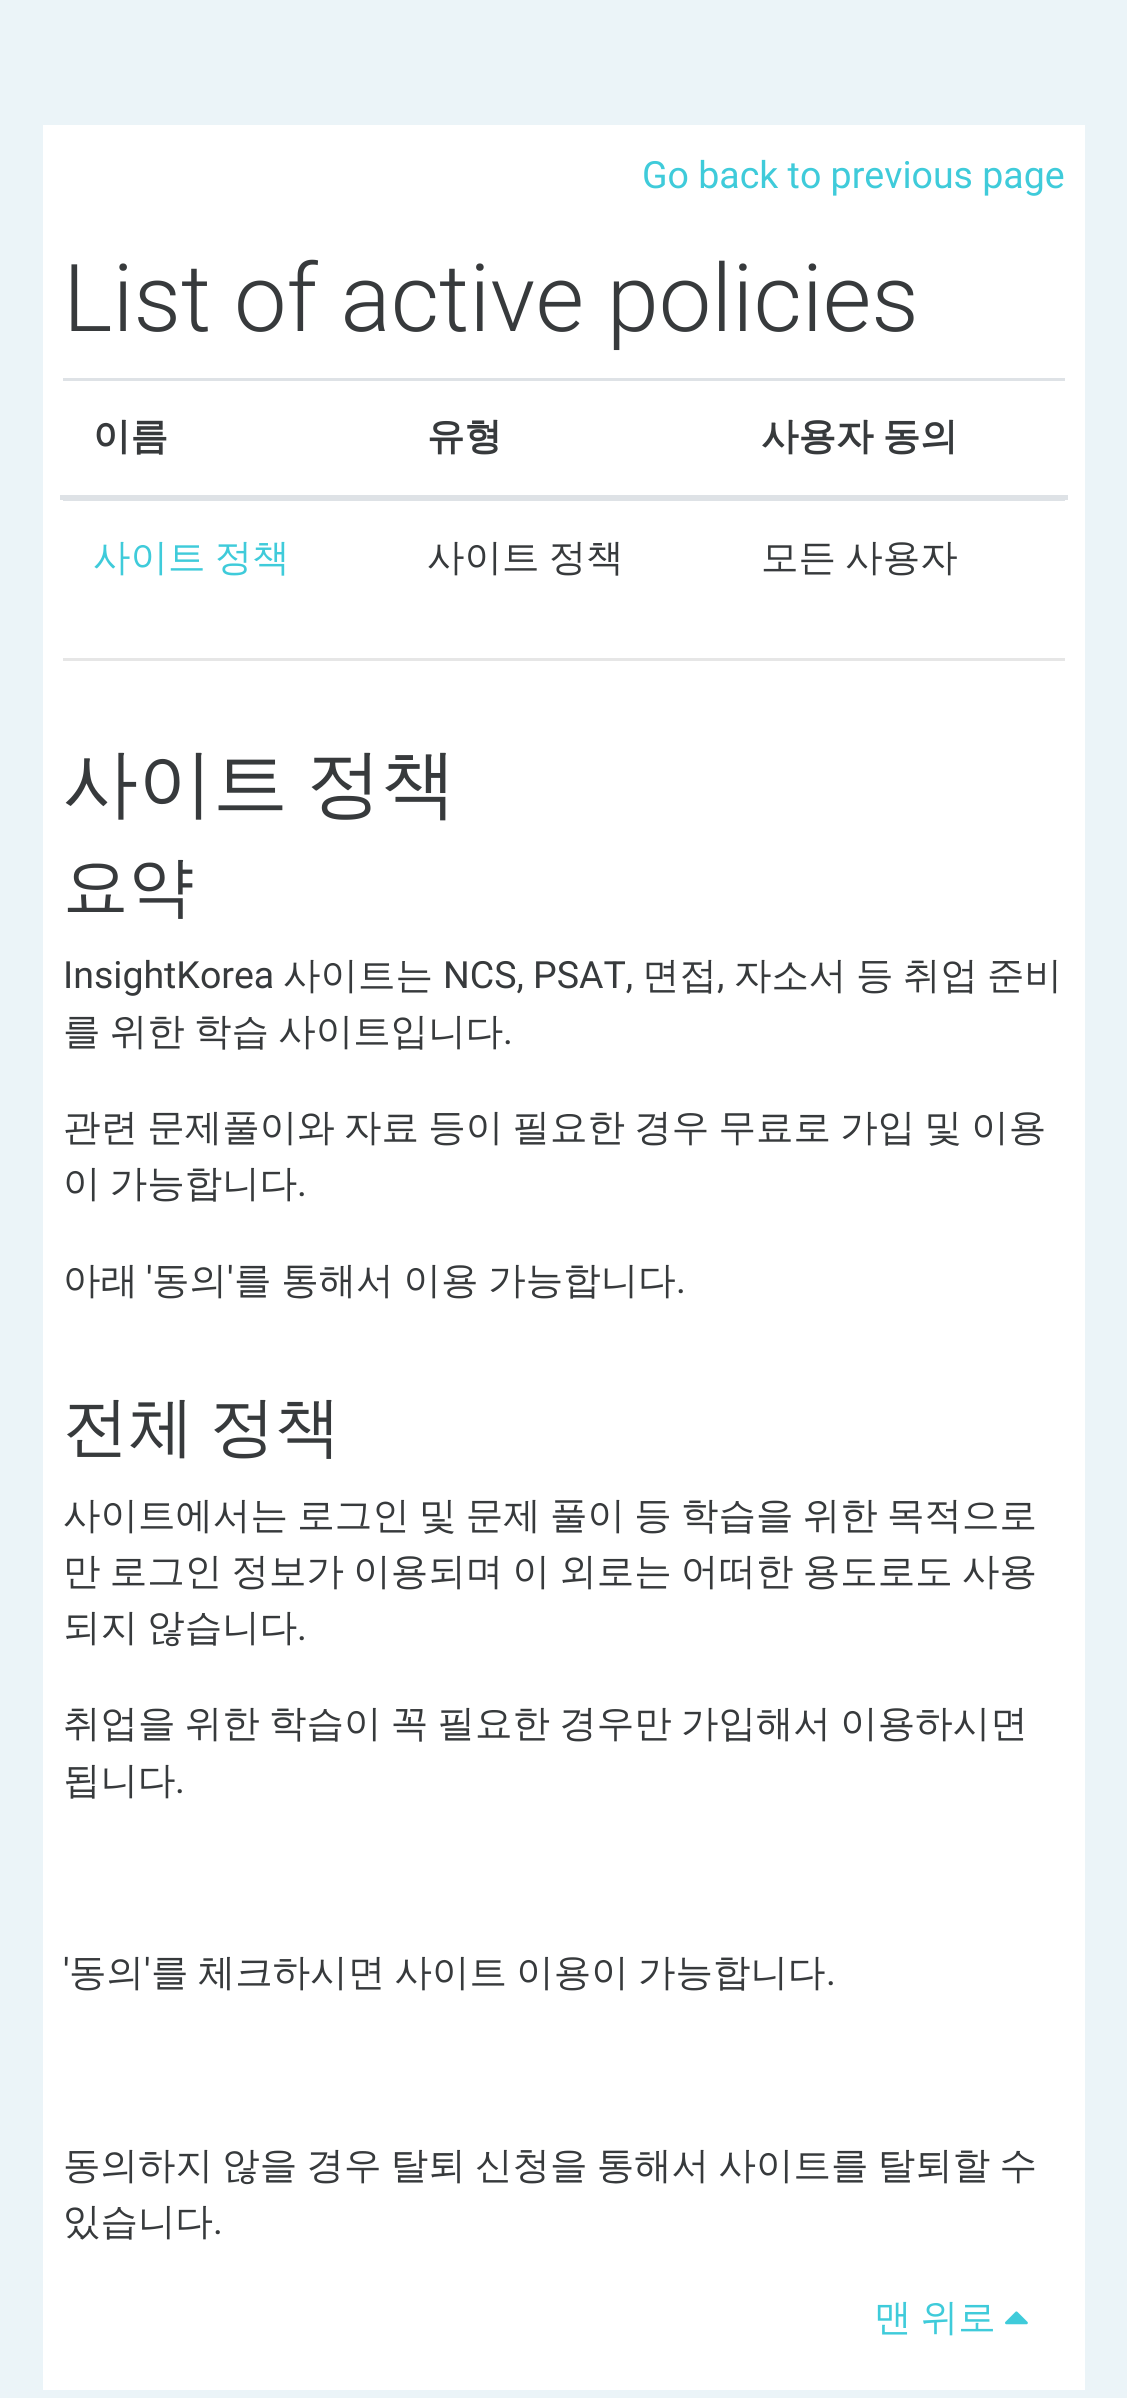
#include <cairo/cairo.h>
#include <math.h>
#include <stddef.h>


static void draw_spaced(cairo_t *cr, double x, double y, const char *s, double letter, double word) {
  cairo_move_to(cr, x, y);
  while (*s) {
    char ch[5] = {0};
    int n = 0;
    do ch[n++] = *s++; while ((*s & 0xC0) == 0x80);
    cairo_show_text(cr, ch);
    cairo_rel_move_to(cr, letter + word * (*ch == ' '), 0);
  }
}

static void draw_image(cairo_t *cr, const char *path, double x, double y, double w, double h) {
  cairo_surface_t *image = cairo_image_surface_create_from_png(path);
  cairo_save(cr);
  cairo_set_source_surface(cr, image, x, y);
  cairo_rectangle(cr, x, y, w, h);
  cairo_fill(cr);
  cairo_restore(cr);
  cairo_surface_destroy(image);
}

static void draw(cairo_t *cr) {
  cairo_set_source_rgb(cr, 235 / 255.0, 244 / 255.0, 248 / 255.0);
  cairo_paint(cr);
  cairo_set_source_rgb(cr, 1, 1, 1);
  cairo_rectangle(cr, 43, 125, 1042, 2265);
  cairo_fill(cr);
  cairo_set_source_rgb(cr, 222 / 255.0, 226 / 255.0, 230 / 255.0);
  cairo_rectangle(cr, 63, 378, 1002, 3);
  cairo_fill(cr);
  cairo_rectangle(cr, 60, 495, 1008, 5);
  cairo_fill(cr);
  cairo_rectangle(cr, 63, 500, 1002, 1);
  cairo_fill(cr);
  cairo_set_source_rgb(cr, 230 / 255.0, 230 / 255.0, 230 / 255.0);
  cairo_rectangle(cr, 63, 658, 1002, 3);
  cairo_fill(cr);
  draw_image(cr, "images/1.png", 1005, 2311, 23, 14);
  cairo_select_font_face(cr, "Roboto", CAIRO_FONT_SLANT_NORMAL, CAIRO_FONT_WEIGHT_NORMAL);
  cairo_set_font_size(cr, 37.5);
  cairo_set_source_rgb(cr, 63 / 255.0, 203 / 255.0, 218 / 255.0);
  cairo_move_to(cr, 642, 188);
  cairo_show_text(cr, "Go back to previous page");
  cairo_select_font_face(cr, "Roboto Light", CAIRO_FONT_SLANT_NORMAL, CAIRO_FONT_WEIGHT_NORMAL);
  cairo_set_font_size(cr, 93.75);
  cairo_set_source_rgb(cr, 55 / 255.0, 58 / 255.0, 60 / 255.0);
  cairo_move_to(cr, 63, 331);
  cairo_show_text(cr, "List of active policies");
  cairo_select_font_face(cr, "WenQuanYi Zen Hei", CAIRO_FONT_SLANT_NORMAL, CAIRO_FONT_WEIGHT_BOLD);
  cairo_set_font_size(cr, 37.5);
  cairo_move_to(cr, 93, 449);
  cairo_show_text(cr, "이름");
  cairo_move_to(cr, 427, 449);
  cairo_show_text(cr, "유형");
  draw_spaced(cr, 761, 449, "사용자 동의", 0, -2);
  cairo_select_font_face(cr, "WenQuanYi Zen Hei Medium", CAIRO_FONT_SLANT_NORMAL, CAIRO_FONT_WEIGHT_NORMAL);
  cairo_set_source_rgb(cr, 63 / 255.0, 203 / 255.0, 218 / 255.0);
  draw_spaced(cr, 93, 570, "사이트 정책", 0, -2);
  cairo_set_source_rgb(cr, 55 / 255.0, 58 / 255.0, 60 / 255.0);
  draw_spaced(cr, 427, 570, "사이트 정책", 0, -2);
  draw_spaced(cr, 761, 570, "모든 사용자", 0, -2);
  cairo_set_font_size(cr, 75);
  draw_spaced(cr, 63, 809, "사이트 정책", 0, -4);
  cairo_set_font_size(cr, 65.5);
  cairo_move_to(cr, 63, 909);
  cairo_show_text(cr, "요약");
  cairo_select_font_face(cr, "Roboto", CAIRO_FONT_SLANT_NORMAL, CAIRO_FONT_WEIGHT_NORMAL);
  cairo_set_font_size(cr, 37.5);
  cairo_move_to(cr, 63, 988);
  cairo_show_text(cr, "InsightKorea");
  cairo_select_font_face(cr, "WenQuanYi Zen Hei Medium", CAIRO_FONT_SLANT_NORMAL, CAIRO_FONT_WEIGHT_NORMAL);
  cairo_move_to(cr, 283, 988);
  cairo_show_text(cr, "사이트는");
  cairo_select_font_face(cr, "Roboto", CAIRO_FONT_SLANT_NORMAL, CAIRO_FONT_WEIGHT_NORMAL);
  cairo_move_to(cr, 443, 988);
  cairo_show_text(cr, "NCS, PSAT,");
  cairo_select_font_face(cr, "WenQuanYi Zen Hei Medium", CAIRO_FONT_SLANT_NORMAL, CAIRO_FONT_WEIGHT_NORMAL);
  cairo_move_to(cr, 642, 988);
  cairo_show_text(cr, "면접");
  cairo_select_font_face(cr, "Roboto", CAIRO_FONT_SLANT_NORMAL, CAIRO_FONT_WEIGHT_NORMAL);
  cairo_move_to(cr, 717, 988);
  cairo_show_text(cr, ",");
  cairo_select_font_face(cr, "WenQuanYi Zen Hei Medium", CAIRO_FONT_SLANT_NORMAL, CAIRO_FONT_WEIGHT_NORMAL);
  cairo_move_to(cr, 734, 988);
  cairo_show_text(cr, "자소서");
  cairo_move_to(cr, 856, 988);
  cairo_show_text(cr, "등");
  cairo_move_to(cr, 903, 988);
  cairo_show_text(cr, "취업");
  cairo_move_to(cr, 987, 988);
  cairo_show_text(cr, "준비");
  draw_spaced(cr, 63, 1044, "를 위한 학습 사이트입니다", 0, -2);
  cairo_select_font_face(cr, "Roboto", CAIRO_FONT_SLANT_NORMAL, CAIRO_FONT_WEIGHT_NORMAL);
  cairo_move_to(cr, 503, 1044);
  cairo_show_text(cr, ".");
  cairo_select_font_face(cr, "WenQuanYi Zen Hei Medium", CAIRO_FONT_SLANT_NORMAL, CAIRO_FONT_WEIGHT_NORMAL);
  draw_spaced(cr, 63, 1140, "관련 문제풀이와 자료 등이 필요한 경우 무료로 가입 및 이용", 0, -2);
  draw_spaced(cr, 63, 1196, "이 가능합니다", 0, -2);
  cairo_select_font_face(cr, "Roboto", CAIRO_FONT_SLANT_NORMAL, CAIRO_FONT_WEIGHT_NORMAL);
  cairo_move_to(cr, 297, 1196);
  cairo_show_text(cr, ".");
  cairo_select_font_face(cr, "WenQuanYi Zen Hei Medium", CAIRO_FONT_SLANT_NORMAL, CAIRO_FONT_WEIGHT_NORMAL);
  cairo_move_to(cr, 63, 1293);
  cairo_show_text(cr, "아래");
  cairo_select_font_face(cr, "Roboto", CAIRO_FONT_SLANT_NORMAL, CAIRO_FONT_WEIGHT_NORMAL);
  cairo_move_to(cr, 146, 1293);
  cairo_show_text(cr, "'");
  cairo_select_font_face(cr, "WenQuanYi Zen Hei Medium", CAIRO_FONT_SLANT_NORMAL, CAIRO_FONT_WEIGHT_NORMAL);
  cairo_move_to(cr, 152, 1293);
  cairo_show_text(cr, "동의");
  cairo_select_font_face(cr, "Roboto", CAIRO_FONT_SLANT_NORMAL, CAIRO_FONT_WEIGHT_NORMAL);
  cairo_move_to(cr, 227, 1293);
  cairo_show_text(cr, "'");
  cairo_select_font_face(cr, "WenQuanYi Zen Hei Medium", CAIRO_FONT_SLANT_NORMAL, CAIRO_FONT_WEIGHT_NORMAL);
  draw_spaced(cr, 234, 1293, "를 통해서 이용 가능합니다", 0, -1.5);
  cairo_select_font_face(cr, "Roboto", CAIRO_FONT_SLANT_NORMAL, CAIRO_FONT_WEIGHT_NORMAL);
  cairo_move_to(cr, 676, 1293);
  cairo_show_text(cr, ".");
  cairo_select_font_face(cr, "WenQuanYi Zen Hei Medium", CAIRO_FONT_SLANT_NORMAL, CAIRO_FONT_WEIGHT_NORMAL);
  cairo_set_font_size(cr, 65.5);
  draw_spaced(cr, 63, 1449, "전체 정책", 0, -4);
  cairo_set_font_size(cr, 37.5);
  draw_spaced(cr, 63, 1528, "사이트에서는 로그인 및 문제 풀이 등 학습을 위한 목적으로", 0, -2);
  draw_spaced(cr, 63, 1584, "만 로그인 정보가 이용되며 이 외로는 어떠한 용도로도", 0, -2);
  cairo_move_to(cr, 962, 1584);
  cairo_show_text(cr, "사용");
  draw_spaced(cr, 63, 1640, "되지 않습니다", 0, -2);
  cairo_select_font_face(cr, "Roboto", CAIRO_FONT_SLANT_NORMAL, CAIRO_FONT_WEIGHT_NORMAL);
  cairo_move_to(cr, 297, 1640);
  cairo_show_text(cr, ".");
  cairo_select_font_face(cr, "WenQuanYi Zen Hei Medium", CAIRO_FONT_SLANT_NORMAL, CAIRO_FONT_WEIGHT_NORMAL);
  draw_spaced(cr, 63, 1736, "취업을 위한 학습이 꼭 필요한 경우만 가입해서 이용하시면", 0, -2);
  cairo_move_to(cr, 63, 1793);
  cairo_show_text(cr, "됩니다");
  cairo_select_font_face(cr, "Roboto", CAIRO_FONT_SLANT_NORMAL, CAIRO_FONT_WEIGHT_NORMAL);
  cairo_move_to(cr, 175, 1793);
  cairo_show_text(cr, ".");
  cairo_move_to(cr, 63, 1985);
  cairo_show_text(cr, "'");
  cairo_select_font_face(cr, "WenQuanYi Zen Hei Medium", CAIRO_FONT_SLANT_NORMAL, CAIRO_FONT_WEIGHT_NORMAL);
  cairo_move_to(cr, 69, 1985);
  cairo_show_text(cr, "동의");
  cairo_select_font_face(cr, "Roboto", CAIRO_FONT_SLANT_NORMAL, CAIRO_FONT_WEIGHT_NORMAL);
  cairo_move_to(cr, 144, 1985);
  cairo_show_text(cr, "'");
  cairo_select_font_face(cr, "WenQuanYi Zen Hei Medium", CAIRO_FONT_SLANT_NORMAL, CAIRO_FONT_WEIGHT_NORMAL);
  draw_spaced(cr, 151, 1985, "를 체크하시면 사이트 이용이 가능합니다", 0, -2);
  cairo_select_font_face(cr, "Roboto", CAIRO_FONT_SLANT_NORMAL, CAIRO_FONT_WEIGHT_NORMAL);
  cairo_move_to(cr, 826, 1985);
  cairo_show_text(cr, ".");
  cairo_select_font_face(cr, "WenQuanYi Zen Hei Medium", CAIRO_FONT_SLANT_NORMAL, CAIRO_FONT_WEIGHT_NORMAL);
  draw_spaced(cr, 63, 2178, "동의하지 않을 경우 탈퇴 신청을 통해서 사이트를 탈퇴할 수", 0, -2);
  cairo_move_to(cr, 63, 2234);
  cairo_show_text(cr, "있습니다");
  cairo_select_font_face(cr, "Roboto", CAIRO_FONT_SLANT_NORMAL, CAIRO_FONT_WEIGHT_NORMAL);
  cairo_move_to(cr, 213, 2234);
  cairo_show_text(cr, ".");
  cairo_select_font_face(cr, "WenQuanYi Zen Hei Medium", CAIRO_FONT_SLANT_NORMAL, CAIRO_FONT_WEIGHT_NORMAL);
  cairo_set_source_rgb(cr, 63 / 255.0, 203 / 255.0, 218 / 255.0);
  draw_spaced(cr, 874, 2330, "맨 위로", 0, -2);
}

int main(void) {
  cairo_surface_t *surface = cairo_image_surface_create(CAIRO_FORMAT_RGB24, 1127, 2398);
  cairo_t *cr = cairo_create(surface);
  cairo_font_options_t *options = cairo_font_options_create();
  cairo_font_options_set_hint_metrics(options, CAIRO_HINT_METRICS_OFF);
  cairo_font_options_set_hint_style(options, CAIRO_HINT_STYLE_NONE);
  cairo_set_font_options(cr, options);
  cairo_set_miter_limit(cr, 4);
  draw(cr);
  cairo_surface_write_to_png(surface, "out.png");
  cairo_font_options_destroy(options);
  cairo_destroy(cr);
  cairo_surface_destroy(surface);
  return 0;
}
